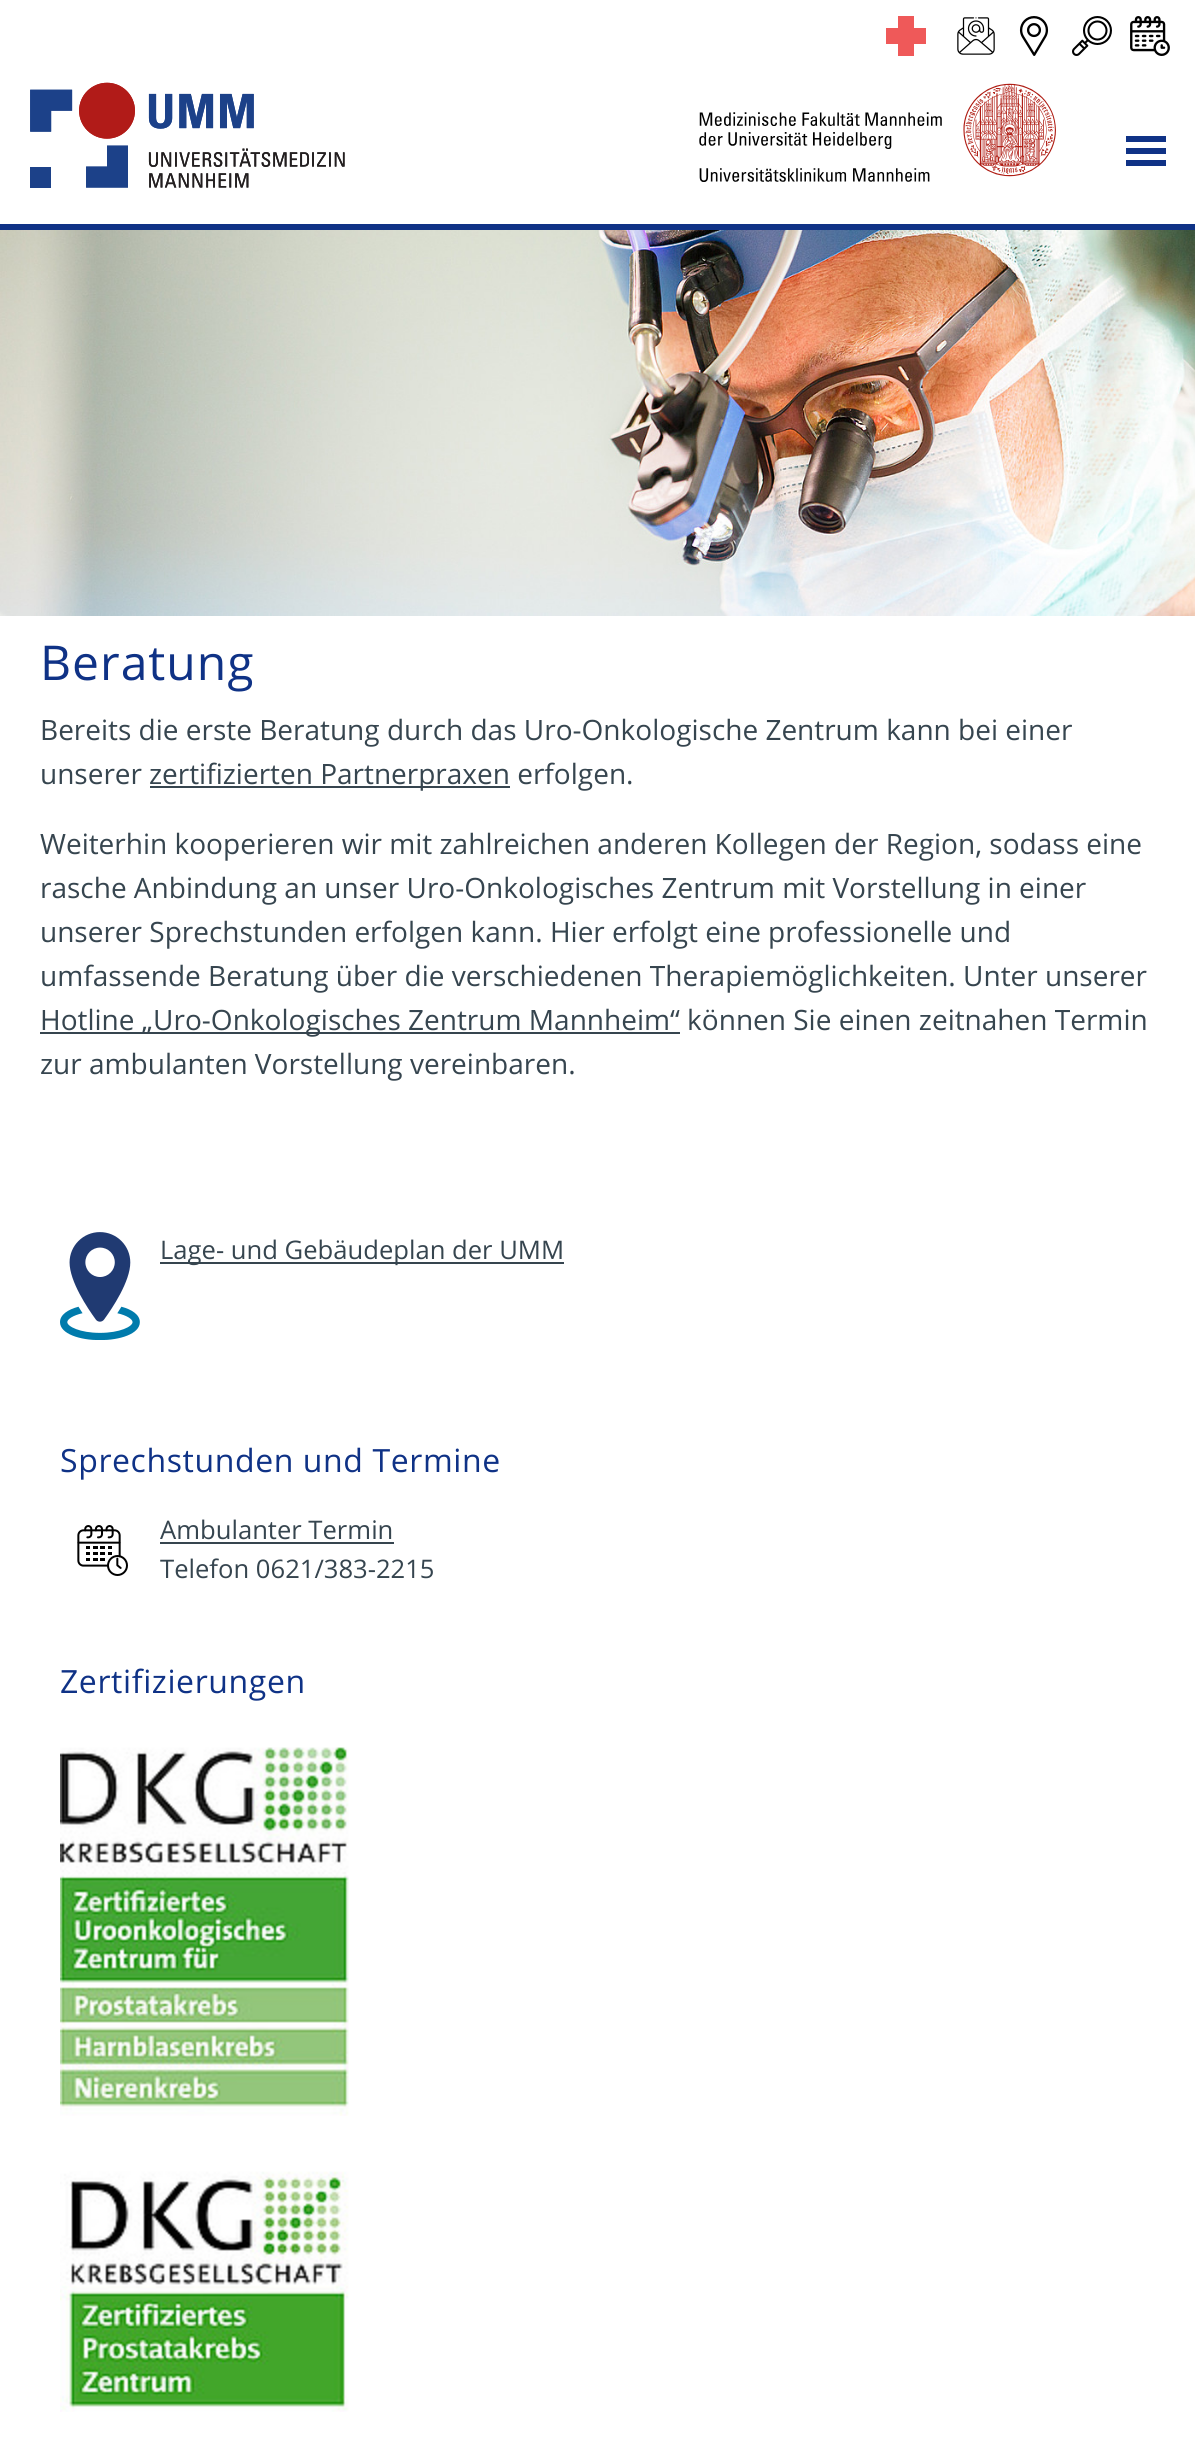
#include <cairo/cairo.h>
#include <math.h>
#include <stddef.h>


static void draw_spaced(cairo_t *cr, double x, double y, const char *s, double letter, double word) {
  cairo_move_to(cr, x, y);
  while (*s) {
    char ch[5] = {0};
    int n = 0;
    do ch[n++] = *s++; while ((*s & 0xC0) == 0x80);
    cairo_show_text(cr, ch);
    cairo_rel_move_to(cr, letter + word * (*ch == ' '), 0);
  }
}

static void draw_image(cairo_t *cr, const char *path, double x, double y, double w, double h) {
  cairo_surface_t *image = cairo_image_surface_create_from_png(path);
  cairo_save(cr);
  cairo_set_source_surface(cr, image, x, y);
  cairo_rectangle(cr, x, y, w, h);
  cairo_fill(cr);
  cairo_restore(cr);
  cairo_surface_destroy(image);
}

static void draw(cairo_t *cr) {
  cairo_set_source_rgb(cr, 1, 1, 1);
  cairo_paint(cr);
  cairo_set_source_rgb(cr, 239 / 255.0, 89 / 255.0, 89 / 255.0);
  cairo_new_path(cr);
  cairo_move_to(cr, 926, 28);
  cairo_line_to(cr, 914, 28);
  cairo_line_to(cr, 914, 16);
  cairo_line_to(cr, 898, 16);
  cairo_line_to(cr, 898, 28);
  cairo_line_to(cr, 886, 28);
  cairo_line_to(cr, 886, 44);
  cairo_line_to(cr, 898, 44);
  cairo_line_to(cr, 898, 56);
  cairo_line_to(cr, 914, 56);
  cairo_line_to(cr, 914, 44);
  cairo_line_to(cr, 926, 44);
  cairo_close_path(cr);
  cairo_fill(cr);
  draw_image(cr, "images/1.png", 957, 17, 38, 38);
  draw_image(cr, "images/2.png", 1019, 16, 30, 40);
  draw_image(cr, "images/3.png", 1072, 16, 40, 40);
  draw_image(cr, "images/4.png", 1130, 16, 40, 40);
  cairo_set_source_rgb(cr, 15 / 255.0, 50 / 255.0, 134 / 255.0);
  cairo_rectangle(cr, 1126, 148, 40, 6);
  cairo_fill(cr);
  cairo_rectangle(cr, 1126, 136, 40, 6);
  cairo_fill(cr);
  cairo_rectangle(cr, 1126, 160, 40, 6);
  cairo_fill(cr);
  cairo_rectangle(cr, 0, 224, 1195, 6);
  cairo_fill(cr);
  draw_image(cr, "images/5.png", 30, 82, 315, 106);
  draw_image(cr, "images/6.png", 699, 83, 357, 99);
  draw_image(cr, "images/7.png", 0, 230, 1195, 386);
  cairo_set_source_rgb(cr, 54 / 255.0, 69 / 255.0, 79 / 255.0);
  cairo_rectangle(cr, 150, 786, 360, 2);
  cairo_fill(cr);
  cairo_rectangle(cr, 40, 1032, 640, 2);
  cairo_fill(cr);
  draw_image(cr, "images/8.png", 60, 1232, 80, 108);
  cairo_rectangle(cr, 160, 1262, 404, 2);
  cairo_fill(cr);
  draw_image(cr, "images/9.png", 77, 1525, 51, 51);
  cairo_rectangle(cr, 160, 1542, 234, 2);
  cairo_fill(cr);
  draw_image(cr, "images/10.png", 60, 1747, 289, 369);
  draw_image(cr, "images/11.png", 60, 2171, 289, 241);
  cairo_select_font_face(cr, "Open Sans", CAIRO_FONT_SLANT_NORMAL, CAIRO_FONT_WEIGHT_NORMAL);
  cairo_set_font_size(cr, 48);
  cairo_set_source_rgb(cr, 15 / 255.0, 50 / 255.0, 134 / 255.0);
  draw_spaced(cr, 40, 680, "Beratung", 1, 0);
  cairo_set_font_size(cr, 28);
  cairo_set_source_rgb(cr, 54 / 255.0, 69 / 255.0, 79 / 255.0);
  cairo_move_to(cr, 40, 740);
  cairo_show_text(cr, "Bereits die erste Beratung durch das Uro-Onkologische Zentrum kann bei einer");
  cairo_move_to(cr, 40, 784);
  cairo_show_text(cr, "unserer");
  cairo_move_to(cr, 149, 784);
  cairo_show_text(cr, "zertifizierten Partnerpraxen erfolgen.");
  cairo_move_to(cr, 40, 854);
  cairo_show_text(cr, "Weiterhin kooperieren wir mit zahlreichen anderen Kollegen der Region, sodass eine");
  cairo_move_to(cr, 40, 898);
  cairo_show_text(cr, "rasche Anbindung an unser Uro-Onkologisches Zentrum mit Vorstellung in einer");
  cairo_move_to(cr, 40, 942);
  cairo_show_text(cr, "unserer Sprechstunden erfolgen kann. Hier erfolgt eine professionelle und");
  cairo_move_to(cr, 40, 986);
  cairo_show_text(cr, "umfassende Beratung über die verschiedenen Therapiemöglichkeiten. Unter unserer");
  cairo_move_to(cr, 40, 1030);
  cairo_show_text(cr, "Hotline „Uro-Onkologisches Zentrum Mannheim“ können Sie einen zeitnahen Termin");
  cairo_move_to(cr, 40, 1074);
  cairo_show_text(cr, "zur ambulanten Vorstellung vereinbaren.");
  cairo_set_font_size(cr, 25.6);
  cairo_move_to(cr, 160, 1259);
  cairo_show_text(cr, "Lage- und Gebäudeplan der UMM");
  cairo_set_font_size(cr, 32);
  cairo_set_source_rgb(cr, 15 / 255.0, 50 / 255.0, 134 / 255.0);
  draw_spaced(cr, 60, 1472, "Sprechstunden und Termine", 0.6, 0);
  cairo_set_font_size(cr, 25.6);
  cairo_set_source_rgb(cr, 54 / 255.0, 69 / 255.0, 79 / 255.0);
  cairo_move_to(cr, 160, 1539);
  cairo_show_text(cr, "Ambulanter Termin");
  cairo_move_to(cr, 160, 1578);
  cairo_show_text(cr, "Telefon 0621/383-2215");
  cairo_set_font_size(cr, 32);
  cairo_set_source_rgb(cr, 15 / 255.0, 50 / 255.0, 134 / 255.0);
  draw_spaced(cr, 60, 1693, "Zertifizierungen", 0.6, 0);
}

int main(void) {
  cairo_surface_t *surface = cairo_image_surface_create(CAIRO_FORMAT_RGB24, 1195, 2455);
  cairo_t *cr = cairo_create(surface);
  cairo_font_options_t *options = cairo_font_options_create();
  cairo_font_options_set_hint_metrics(options, CAIRO_HINT_METRICS_OFF);
  cairo_font_options_set_hint_style(options, CAIRO_HINT_STYLE_NONE);
  cairo_set_font_options(cr, options);
  cairo_set_miter_limit(cr, 4);
  draw(cr);
  cairo_surface_write_to_png(surface, "out.png");
  cairo_font_options_destroy(options);
  cairo_destroy(cr);
  cairo_surface_destroy(surface);
  return 0;
}
